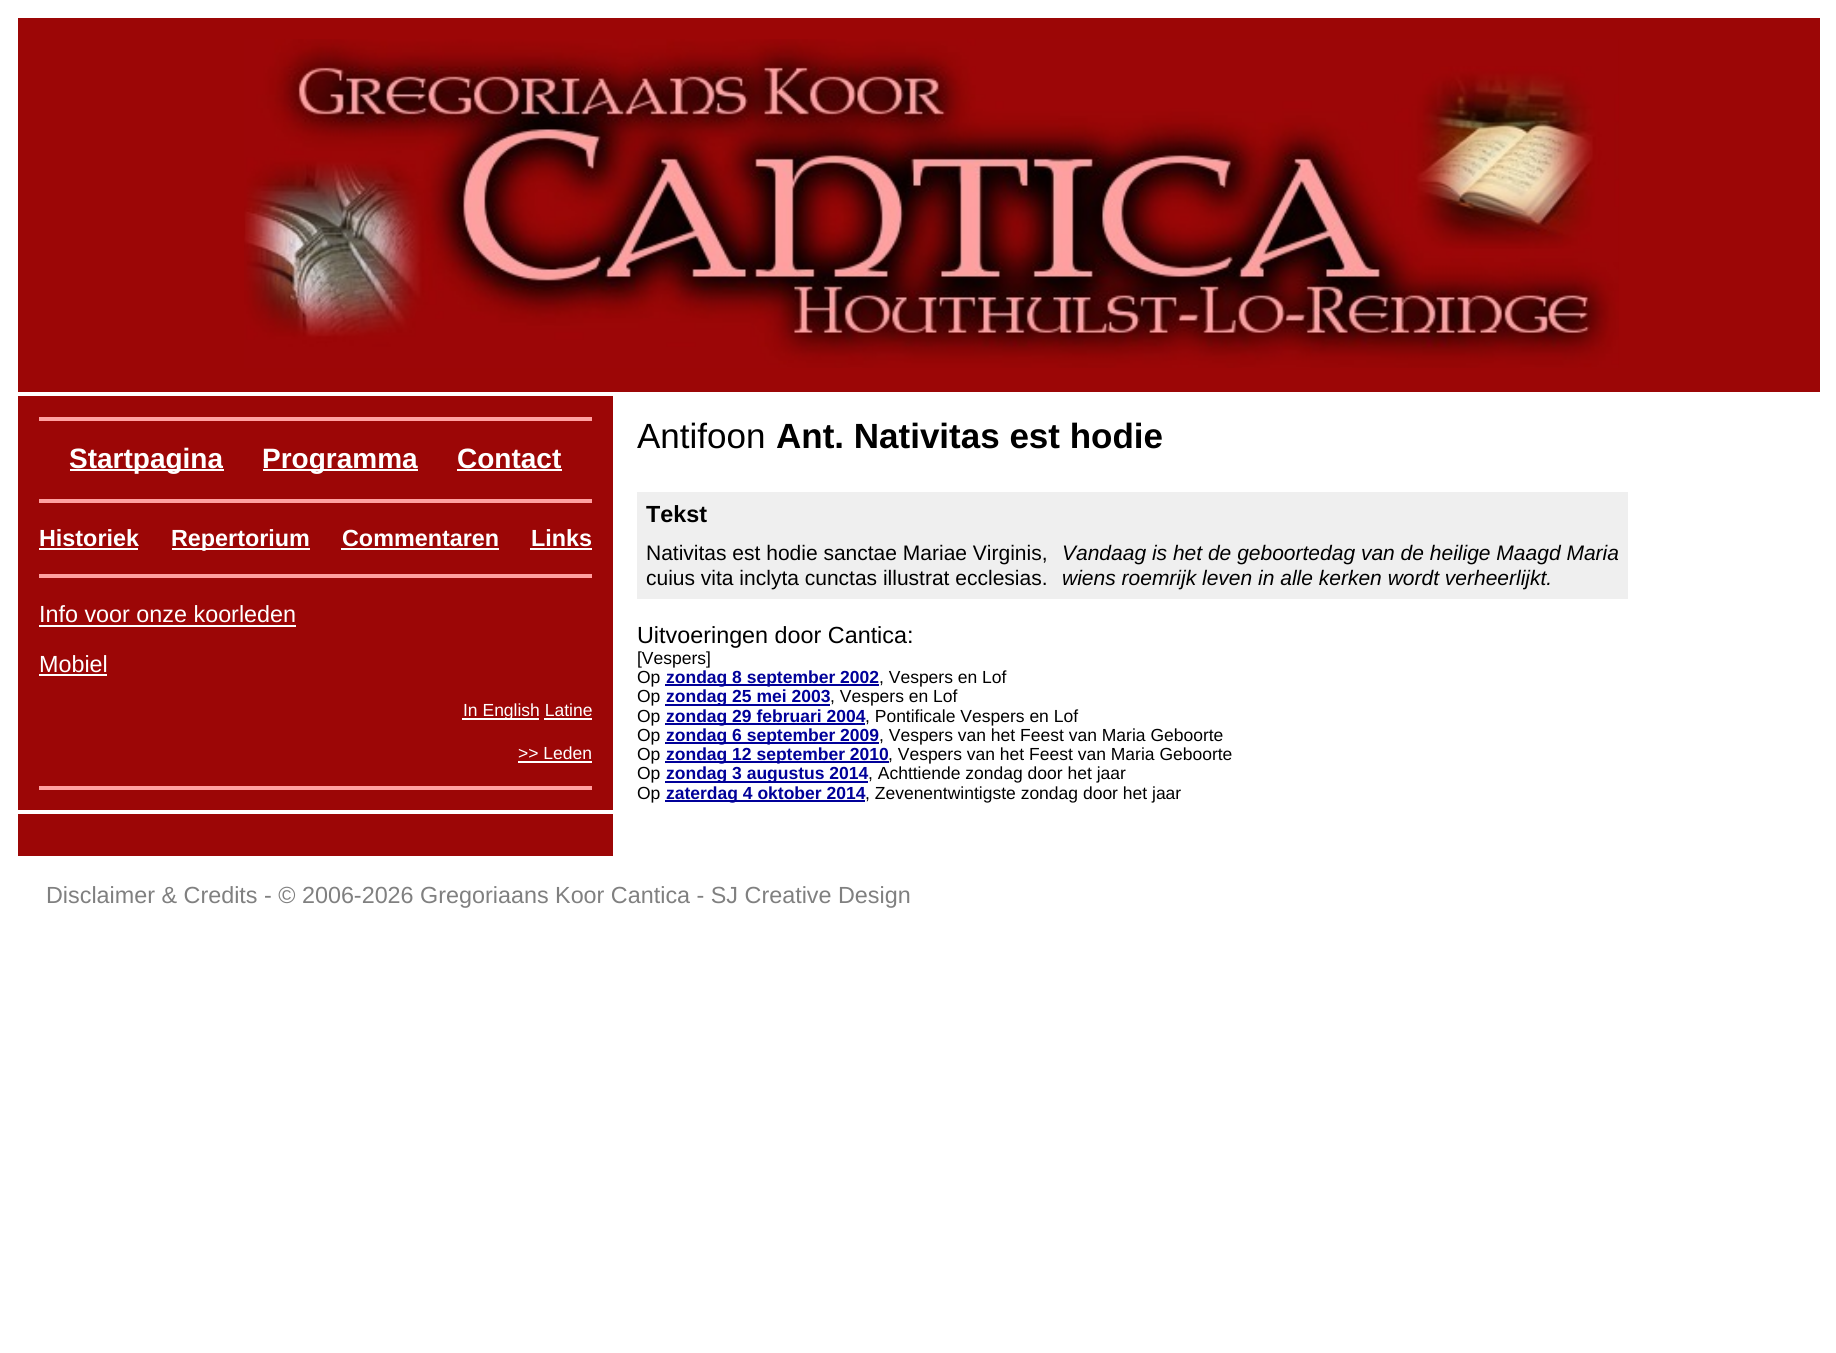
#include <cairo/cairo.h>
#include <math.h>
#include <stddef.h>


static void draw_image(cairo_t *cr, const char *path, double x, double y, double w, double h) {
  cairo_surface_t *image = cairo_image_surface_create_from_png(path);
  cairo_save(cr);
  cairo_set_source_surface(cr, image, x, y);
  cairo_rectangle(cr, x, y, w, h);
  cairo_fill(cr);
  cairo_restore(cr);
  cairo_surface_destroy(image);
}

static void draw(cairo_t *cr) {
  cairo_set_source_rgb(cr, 1, 1, 1);
  cairo_paint(cr);
  cairo_set_source_rgb(cr, 156 / 255.0, 6 / 255.0, 6 / 255.0);
  cairo_rectangle(cr, 18, 18, 1802, 374);
  cairo_fill(cr);
  draw_image(cr, "images/1.png", 244, 39, 1375, 329);
  cairo_rectangle(cr, 18, 396, 595, 414);
  cairo_fill(cr);
  cairo_set_source_rgb(cr, 1, 160 / 255.0, 160 / 255.0);
  cairo_rectangle(cr, 39, 417, 553, 4);
  cairo_fill(cr);
  cairo_set_source_rgb(cr, 1, 1, 1);
  cairo_rectangle(cr, 70, 469, 154, 2);
  cairo_fill(cr);
  cairo_rectangle(cr, 263, 469, 155, 2);
  cairo_fill(cr);
  cairo_rectangle(cr, 457, 469, 105, 2);
  cairo_fill(cr);
  cairo_set_source_rgb(cr, 1, 160 / 255.0, 160 / 255.0);
  cairo_rectangle(cr, 39, 499, 553, 4);
  cairo_fill(cr);
  cairo_set_source_rgb(cr, 1, 1, 1);
  cairo_rectangle(cr, 39, 548, 99, 2);
  cairo_fill(cr);
  cairo_rectangle(cr, 172, 548, 138, 2);
  cairo_fill(cr);
  cairo_rectangle(cr, 341, 548, 158, 2);
  cairo_fill(cr);
  cairo_rectangle(cr, 530, 548, 62, 2);
  cairo_fill(cr);
  cairo_set_source_rgb(cr, 1, 160 / 255.0, 160 / 255.0);
  cairo_rectangle(cr, 39, 574, 553, 4);
  cairo_fill(cr);
  cairo_set_source_rgb(cr, 1, 1, 1);
  cairo_rectangle(cr, 39, 625, 257, 2);
  cairo_fill(cr);
  cairo_rectangle(cr, 39, 674, 68, 2);
  cairo_fill(cr);
  cairo_rectangle(cr, 462, 718, 77, 2);
  cairo_fill(cr);
  cairo_rectangle(cr, 544, 718, 48, 2);
  cairo_fill(cr);
  cairo_rectangle(cr, 518, 761, 74, 2);
  cairo_fill(cr);
  cairo_set_source_rgb(cr, 1, 160 / 255.0, 160 / 255.0);
  cairo_rectangle(cr, 39, 786, 553, 4);
  cairo_fill(cr);
  cairo_set_source_rgb(cr, 239 / 255.0, 239 / 255.0, 239 / 255.0);
  cairo_rectangle(cr, 637, 492, 991, 107);
  cairo_fill(cr);
  cairo_set_source_rgb(cr, 0, 0, 153 / 255.0);
  cairo_rectangle(cr, 665, 684, 214, 2);
  cairo_fill(cr);
  cairo_rectangle(cr, 665, 704, 165, 2);
  cairo_fill(cr);
  cairo_rectangle(cr, 665, 723, 200, 2);
  cairo_fill(cr);
  cairo_rectangle(cr, 665, 742, 214, 2);
  cairo_fill(cr);
  cairo_rectangle(cr, 665, 761, 224, 2);
  cairo_fill(cr);
  cairo_rectangle(cr, 665, 781, 203, 2);
  cairo_fill(cr);
  cairo_rectangle(cr, 665, 800, 200, 2);
  cairo_fill(cr);
  cairo_set_source_rgb(cr, 156 / 255.0, 6 / 255.0, 6 / 255.0);
  cairo_rectangle(cr, 18, 814, 595, 42);
  cairo_fill(cr);
  cairo_select_font_face(cr, "Liberation Sans", CAIRO_FONT_SLANT_NORMAL, CAIRO_FONT_WEIGHT_BOLD);
  cairo_set_font_size(cr, 28);
  cairo_set_source_rgb(cr, 1, 1, 1);
  cairo_move_to(cr, 69, 468);
  cairo_show_text(cr, "Startpagina");
  cairo_move_to(cr, 262, 468);
  cairo_show_text(cr, "Programma");
  cairo_move_to(cr, 457, 468);
  cairo_show_text(cr, "Contact");
  cairo_set_font_size(cr, 23.35);
  cairo_move_to(cr, 39, 546);
  cairo_show_text(cr, "Historiek");
  cairo_move_to(cr, 171, 546);
  cairo_show_text(cr, "Repertorium");
  cairo_move_to(cr, 342, 546);
  cairo_show_text(cr, "Commentaren");
  cairo_move_to(cr, 531, 546);
  cairo_show_text(cr, "Links");
  cairo_select_font_face(cr, "Liberation Sans", CAIRO_FONT_SLANT_NORMAL, CAIRO_FONT_WEIGHT_NORMAL);
  cairo_move_to(cr, 39, 622);
  cairo_show_text(cr, "Info voor onze koorleden");
  cairo_move_to(cr, 39, 672);
  cairo_show_text(cr, "Mobiel");
  cairo_set_font_size(cr, 17.5);
  cairo_move_to(cr, 463, 716);
  cairo_show_text(cr, "In English Latine");
  cairo_move_to(cr, 518, 759);
  cairo_show_text(cr, ">> Leden");
  cairo_set_font_size(cr, 35);
  cairo_set_source_rgb(cr, 0, 0, 0);
  cairo_move_to(cr, 637, 448);
  cairo_show_text(cr, "Antifoon");
  cairo_select_font_face(cr, "Liberation Sans", CAIRO_FONT_SLANT_NORMAL, CAIRO_FONT_WEIGHT_BOLD);
  cairo_move_to(cr, 776, 448);
  cairo_show_text(cr, "Ant. Nativitas est hodie");
  cairo_set_font_size(cr, 23.35);
  cairo_move_to(cr, 646, 522);
  cairo_show_text(cr, "Tekst");
  cairo_select_font_face(cr, "Liberation Sans", CAIRO_FONT_SLANT_NORMAL, CAIRO_FONT_WEIGHT_NORMAL);
  cairo_set_font_size(cr, 21);
  cairo_move_to(cr, 646, 560);
  cairo_show_text(cr, "Nativitas est hodie sanctae Mariae Virginis,");
  cairo_move_to(cr, 646, 585);
  cairo_show_text(cr, "cuius vita inclyta cunctas illustrat ecclesias.");
  cairo_select_font_face(cr, "Liberation Sans", CAIRO_FONT_SLANT_ITALIC, CAIRO_FONT_WEIGHT_NORMAL);
  cairo_move_to(cr, 1062, 560);
  cairo_show_text(cr, "Vandaag is het de geboortedag van de heilige Maagd Maria");
  cairo_move_to(cr, 1062, 585);
  cairo_show_text(cr, "wiens roemrijk leven in alle kerken wordt verheerlijkt.");
  cairo_select_font_face(cr, "Liberation Sans", CAIRO_FONT_SLANT_NORMAL, CAIRO_FONT_WEIGHT_NORMAL);
  cairo_set_font_size(cr, 23.35);
  cairo_move_to(cr, 637, 643);
  cairo_show_text(cr, "Uitvoeringen door Cantica:");
  cairo_set_font_size(cr, 17.5);
  cairo_move_to(cr, 637, 664);
  cairo_show_text(cr, "[Vespers]");
  cairo_move_to(cr, 637, 683);
  cairo_show_text(cr, "Op");
  cairo_select_font_face(cr, "Liberation Sans", CAIRO_FONT_SLANT_NORMAL, CAIRO_FONT_WEIGHT_BOLD);
  cairo_set_source_rgb(cr, 0, 0, 153 / 255.0);
  cairo_move_to(cr, 666, 683);
  cairo_show_text(cr, "zondag 8 september 2002");
  cairo_select_font_face(cr, "Liberation Sans", CAIRO_FONT_SLANT_NORMAL, CAIRO_FONT_WEIGHT_NORMAL);
  cairo_set_source_rgb(cr, 0, 0, 0);
  cairo_move_to(cr, 879, 683);
  cairo_show_text(cr, ", Vespers en Lof");
  cairo_move_to(cr, 637, 702);
  cairo_show_text(cr, "Op");
  cairo_select_font_face(cr, "Liberation Sans", CAIRO_FONT_SLANT_NORMAL, CAIRO_FONT_WEIGHT_BOLD);
  cairo_set_source_rgb(cr, 0, 0, 153 / 255.0);
  cairo_move_to(cr, 666, 702);
  cairo_show_text(cr, "zondag 25 mei 2003");
  cairo_select_font_face(cr, "Liberation Sans", CAIRO_FONT_SLANT_NORMAL, CAIRO_FONT_WEIGHT_NORMAL);
  cairo_set_source_rgb(cr, 0, 0, 0);
  cairo_move_to(cr, 830, 702);
  cairo_show_text(cr, ", Vespers en Lof");
  cairo_move_to(cr, 637, 722);
  cairo_show_text(cr, "Op");
  cairo_select_font_face(cr, "Liberation Sans", CAIRO_FONT_SLANT_NORMAL, CAIRO_FONT_WEIGHT_BOLD);
  cairo_set_source_rgb(cr, 0, 0, 153 / 255.0);
  cairo_move_to(cr, 666, 722);
  cairo_show_text(cr, "zondag 29 februari 2004");
  cairo_select_font_face(cr, "Liberation Sans", CAIRO_FONT_SLANT_NORMAL, CAIRO_FONT_WEIGHT_NORMAL);
  cairo_set_source_rgb(cr, 0, 0, 0);
  cairo_move_to(cr, 865, 722);
  cairo_show_text(cr, ", Pontificale Vespers en Lof");
  cairo_move_to(cr, 637, 741);
  cairo_show_text(cr, "Op");
  cairo_select_font_face(cr, "Liberation Sans", CAIRO_FONT_SLANT_NORMAL, CAIRO_FONT_WEIGHT_BOLD);
  cairo_set_source_rgb(cr, 0, 0, 153 / 255.0);
  cairo_move_to(cr, 666, 741);
  cairo_show_text(cr, "zondag 6 september 2009");
  cairo_select_font_face(cr, "Liberation Sans", CAIRO_FONT_SLANT_NORMAL, CAIRO_FONT_WEIGHT_NORMAL);
  cairo_set_source_rgb(cr, 0, 0, 0);
  cairo_move_to(cr, 879, 741);
  cairo_show_text(cr, ", Vespers van het Feest van Maria Geboorte");
  cairo_move_to(cr, 637, 760);
  cairo_show_text(cr, "Op");
  cairo_select_font_face(cr, "Liberation Sans", CAIRO_FONT_SLANT_NORMAL, CAIRO_FONT_WEIGHT_BOLD);
  cairo_set_source_rgb(cr, 0, 0, 153 / 255.0);
  cairo_move_to(cr, 666, 760);
  cairo_show_text(cr, "zondag 12 september 2010");
  cairo_select_font_face(cr, "Liberation Sans", CAIRO_FONT_SLANT_NORMAL, CAIRO_FONT_WEIGHT_NORMAL);
  cairo_set_source_rgb(cr, 0, 0, 0);
  cairo_move_to(cr, 888, 760);
  cairo_show_text(cr, ", Vespers van het Feest van Maria Geboorte");
  cairo_move_to(cr, 637, 779);
  cairo_show_text(cr, "Op");
  cairo_select_font_face(cr, "Liberation Sans", CAIRO_FONT_SLANT_NORMAL, CAIRO_FONT_WEIGHT_BOLD);
  cairo_set_source_rgb(cr, 0, 0, 153 / 255.0);
  cairo_move_to(cr, 666, 779);
  cairo_show_text(cr, "zondag 3 augustus 2014");
  cairo_select_font_face(cr, "Liberation Sans", CAIRO_FONT_SLANT_NORMAL, CAIRO_FONT_WEIGHT_NORMAL);
  cairo_set_source_rgb(cr, 0, 0, 0);
  cairo_move_to(cr, 868, 779);
  cairo_show_text(cr, ", Achttiende zondag door het jaar");
  cairo_move_to(cr, 637, 799);
  cairo_show_text(cr, "Op");
  cairo_select_font_face(cr, "Liberation Sans", CAIRO_FONT_SLANT_NORMAL, CAIRO_FONT_WEIGHT_BOLD);
  cairo_set_source_rgb(cr, 0, 0, 153 / 255.0);
  cairo_move_to(cr, 666, 799);
  cairo_show_text(cr, "zaterdag 4 oktober 2014");
  cairo_select_font_face(cr, "Liberation Sans", CAIRO_FONT_SLANT_NORMAL, CAIRO_FONT_WEIGHT_NORMAL);
  cairo_set_source_rgb(cr, 0, 0, 0);
  cairo_move_to(cr, 865, 799);
  cairo_show_text(cr, ", Zevenentwintigste zondag door het jaar");
  cairo_set_font_size(cr, 23.35);
  cairo_set_source_rgb(cr, 128 / 255.0, 128 / 255.0, 128 / 255.0);
  cairo_move_to(cr, 46, 903);
  cairo_show_text(cr, "Disclaimer & Credits - © 2006-2026 Gregoriaans Koor Cantica - SJ Creative Design");
}

int main(void) {
  cairo_surface_t *surface = cairo_image_surface_create(CAIRO_FORMAT_RGB24, 1836, 1353);
  cairo_t *cr = cairo_create(surface);
  cairo_font_options_t *options = cairo_font_options_create();
  cairo_font_options_set_hint_metrics(options, CAIRO_HINT_METRICS_OFF);
  cairo_font_options_set_hint_style(options, CAIRO_HINT_STYLE_NONE);
  cairo_set_font_options(cr, options);
  cairo_set_miter_limit(cr, 4);
  draw(cr);
  cairo_surface_write_to_png(surface, "out.png");
  cairo_font_options_destroy(options);
  cairo_destroy(cr);
  cairo_surface_destroy(surface);
  return 0;
}
